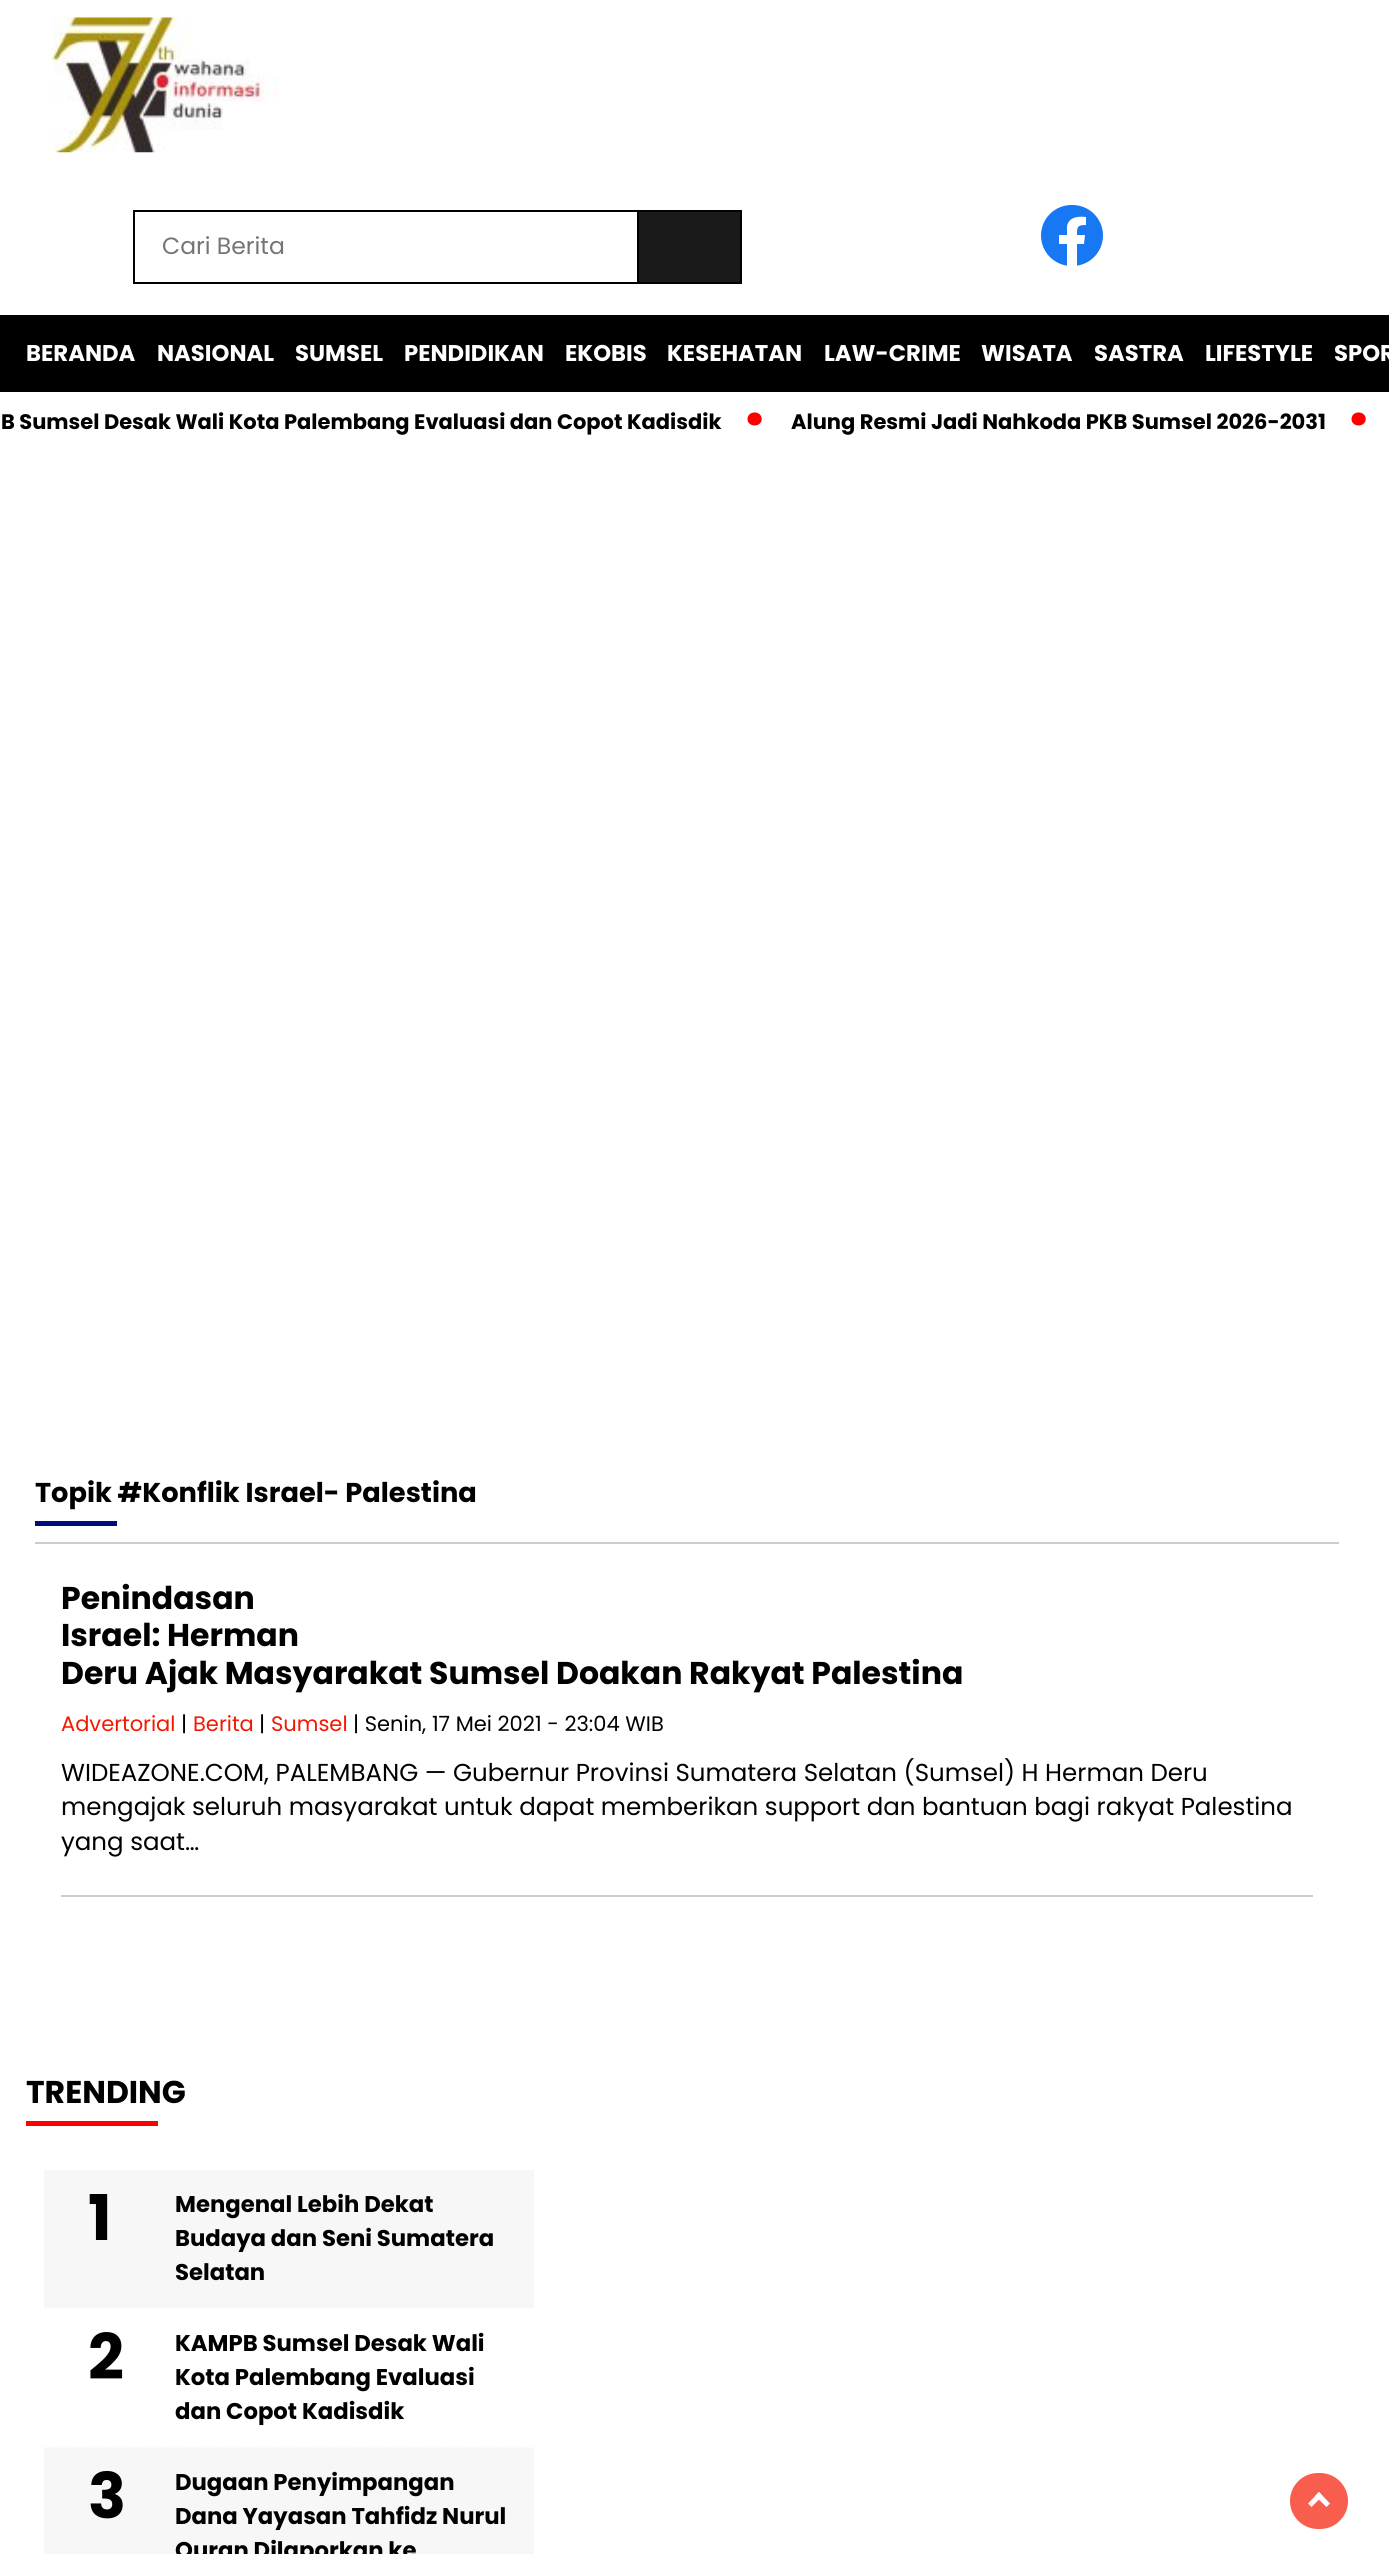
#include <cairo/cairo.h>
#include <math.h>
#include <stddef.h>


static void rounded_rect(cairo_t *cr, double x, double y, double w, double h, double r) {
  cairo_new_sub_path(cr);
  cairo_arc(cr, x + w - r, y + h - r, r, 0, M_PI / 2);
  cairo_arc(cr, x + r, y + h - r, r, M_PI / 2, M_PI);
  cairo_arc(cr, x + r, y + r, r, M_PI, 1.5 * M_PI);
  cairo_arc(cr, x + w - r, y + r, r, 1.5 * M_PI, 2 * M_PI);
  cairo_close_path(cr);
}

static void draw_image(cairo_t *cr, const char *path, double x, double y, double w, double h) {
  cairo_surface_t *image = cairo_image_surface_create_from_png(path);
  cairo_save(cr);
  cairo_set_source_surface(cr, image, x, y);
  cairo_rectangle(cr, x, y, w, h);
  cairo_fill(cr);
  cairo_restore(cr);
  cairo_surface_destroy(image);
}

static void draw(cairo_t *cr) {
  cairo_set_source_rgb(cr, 1, 1, 1);
  cairo_paint(cr);
  draw_image(cr, "images/1.png", 51, 17, 228, 136);
  cairo_rectangle(cr, 134, 211, 504, 72);
  cairo_set_source_rgb(cr, 0, 0, 0);
  cairo_stroke(cr);
  cairo_set_source_rgb(cr, 26 / 255.0, 26 / 255.0, 26 / 255.0);
  cairo_rectangle(cr, 638, 211, 103, 72);
  cairo_fill_preserve(cr);
  cairo_set_source_rgb(cr, 0, 0, 0);
  cairo_stroke(cr);
  cairo_set_source_rgb(cr, 24 / 255.0, 119 / 255.0, 242 / 255.0);
  rounded_rect(cr, 1041, 205, 62, 61, 30.5);
  cairo_fill(cr);
  cairo_set_source_rgb(cr, 1, 1, 1);
  cairo_new_path(cr);
  cairo_move_to(cr, 1084, 244);
  cairo_line_to(cr, 1085, 235);
  cairo_line_to(cr, 1077, 235);
  cairo_curve_to(cr, 1077, 227, 1077, 225, 1086, 225);
  cairo_line_to(cr, 1086, 217);
  cairo_curve_to(cr, 1078, 216, 1069, 217, 1067, 226);
  cairo_line_to(cr, 1067, 235);
  cairo_line_to(cr, 1059, 235);
  cairo_line_to(cr, 1059, 244);
  cairo_line_to(cr, 1067, 244);
  cairo_line_to(cr, 1067, 266);
  cairo_line_to(cr, 1077, 266);
  cairo_line_to(cr, 1077, 244);
  cairo_close_path(cr);
  cairo_fill(cr);
  cairo_set_source_rgb(cr, 0, 0, 0);
  cairo_rectangle(cr, 0, 315, 1389, 77);
  cairo_fill(cr);
  cairo_set_source_rgb(cr, 204 / 255.0, 204 / 255.0, 204 / 255.0);
  cairo_rectangle(cr, 35, 1542, 1304, 2);
  cairo_fill(cr);
  cairo_set_source_rgb(cr, 1 / 255.0, 10 / 255.0, 128 / 255.0);
  cairo_rectangle(cr, 35, 1521, 82, 5);
  cairo_fill(cr);
  cairo_set_source_rgb(cr, 204 / 255.0, 204 / 255.0, 204 / 255.0);
  cairo_rectangle(cr, 61, 1895, 1252, 2);
  cairo_fill(cr);
  cairo_set_source_rgb(cr, 1, 0, 0);
  cairo_rectangle(cr, 26, 2121, 132, 5);
  cairo_fill(cr);
  cairo_set_source_rgb(cr, 247 / 255.0, 247 / 255.0, 247 / 255.0);
  cairo_rectangle(cr, 44, 2170, 490, 138);
  cairo_fill(cr);
  cairo_new_path(cr);
  cairo_move_to(cr, 44, 2307.5);
  cairo_line_to(cr, 534, 2307.5);
  cairo_set_line_width(cr, 1.8);
  cairo_set_dash(cr, (double[]){1.75, 1.75}, 2, 0);
  cairo_stroke(cr);
  cairo_new_path(cr);
  cairo_move_to(cr, 44, 2447.5);
  cairo_line_to(cr, 534, 2447.5);
  cairo_stroke(cr);
  cairo_rectangle(cr, 44, 2448, 490, 106);
  cairo_fill(cr);
  cairo_set_source_rgb(cr, 248 / 255.0, 93 / 255.0, 77 / 255.0);
  rounded_rect(cr, 1290, 2473, 58, 56, 28);
  cairo_fill(cr);
  cairo_set_source_rgb(cr, 1, 1, 1);
  cairo_new_path(cr);
  cairo_move_to(cr, 1311.5, 2507);
  cairo_line_to(cr, 1308, 2503.5);
  cairo_line_to(cr, 1319, 2492);
  cairo_line_to(cr, 1322.5, 2496);
  cairo_close_path(cr);
  cairo_fill(cr);
  cairo_new_path(cr);
  cairo_move_to(cr, 1326.5, 2507);
  cairo_line_to(cr, 1315, 2496);
  cairo_line_to(cr, 1319, 2492);
  cairo_line_to(cr, 1330, 2503.5);
  cairo_close_path(cr);
  cairo_fill(cr);
  cairo_select_font_face(cr, "Poppins", CAIRO_FONT_SLANT_NORMAL, CAIRO_FONT_WEIGHT_NORMAL);
  cairo_set_font_size(cr, 23.5);
  cairo_set_source_rgb(cr, 117 / 255.0, 117 / 255.0, 117 / 255.0);
  cairo_move_to(cr, 162, 254);
  cairo_show_text(cr, "Cari Berita");
  cairo_select_font_face(cr, "Poppins", CAIRO_FONT_SLANT_NORMAL, CAIRO_FONT_WEIGHT_BOLD);
  cairo_set_font_size(cr, 22.75);
  cairo_set_source_rgb(cr, 1, 1, 1);
  cairo_move_to(cr, 26, 361);
  cairo_show_text(cr, "BERANDA");
  cairo_move_to(cr, 157, 361);
  cairo_show_text(cr, "NASIONAL");
  cairo_move_to(cr, 295, 361);
  cairo_show_text(cr, "SUMSEL");
  cairo_move_to(cr, 404, 361);
  cairo_show_text(cr, "PENDIDIKAN");
  cairo_move_to(cr, 565, 361);
  cairo_show_text(cr, "EKOBIS");
  cairo_move_to(cr, 667, 361);
  cairo_show_text(cr, "KESEHATAN");
  cairo_move_to(cr, 824, 361);
  cairo_show_text(cr, "LAW-CRIME");
  cairo_move_to(cr, 981, 361);
  cairo_show_text(cr, "WISATA");
  cairo_move_to(cr, 1094, 361);
  cairo_show_text(cr, "SASTRA");
  cairo_move_to(cr, 1205, 361);
  cairo_show_text(cr, "LIFESTYLE");
  cairo_move_to(cr, 1334, 361);
  cairo_show_text(cr, "SPOR");
  cairo_set_font_size(cr, 21);
  cairo_set_source_rgb(cr, 0, 0, 0);
  cairo_move_to(cr, 1, 429);
  cairo_show_text(cr, "B Sumsel Desak Wali Kota Palembang Evaluasi dan Copot Kadisdik");
  cairo_set_font_size(cr, 70);
  cairo_set_source_rgb(cr, 1, 0, 0);
  cairo_move_to(cr, 744, 441);
  cairo_show_text(cr, "·");
  cairo_set_font_size(cr, 21);
  cairo_set_source_rgb(cr, 0, 0, 0);
  cairo_move_to(cr, 791, 429);
  cairo_show_text(cr, "Alung Resmi Jadi Nahkoda PKB Sumsel 2026-2031");
  cairo_set_font_size(cr, 70);
  cairo_set_source_rgb(cr, 1, 0, 0);
  cairo_move_to(cr, 1348, 441);
  cairo_show_text(cr, "·");
  cairo_set_font_size(cr, 27.25);
  cairo_set_source_rgb(cr, 0, 0, 0);
  cairo_move_to(cr, 35, 1502);
  cairo_show_text(cr, "Topik #Konflik Israel- Palestina");
  cairo_set_font_size(cr, 31.5);
  cairo_move_to(cr, 61, 1609);
  cairo_show_text(cr, "Penindasan");
  cairo_move_to(cr, 61, 1646);
  cairo_show_text(cr, "Israel: Herman");
  cairo_move_to(cr, 61, 1684);
  cairo_show_text(cr, "Deru Ajak Masyarakat Sumsel Doakan Rakyat Palestina");
  cairo_select_font_face(cr, "Poppins", CAIRO_FONT_SLANT_NORMAL, CAIRO_FONT_WEIGHT_NORMAL);
  cairo_set_font_size(cr, 21);
  cairo_set_source_rgb(cr, 245 / 255.0, 23 / 255.0, 0);
  cairo_move_to(cr, 61, 1731);
  cairo_show_text(cr, "Advertorial");
  cairo_set_source_rgb(cr, 0, 0, 0);
  cairo_move_to(cr, 181, 1731);
  cairo_show_text(cr, "|");
  cairo_set_source_rgb(cr, 245 / 255.0, 23 / 255.0, 0);
  cairo_move_to(cr, 193, 1731);
  cairo_show_text(cr, "Berita");
  cairo_set_source_rgb(cr, 0, 0, 0);
  cairo_move_to(cr, 259, 1731);
  cairo_show_text(cr, "|");
  cairo_set_source_rgb(cr, 245 / 255.0, 23 / 255.0, 0);
  cairo_move_to(cr, 271, 1731);
  cairo_show_text(cr, "Sumsel");
  cairo_set_source_rgb(cr, 0, 0, 0);
  cairo_move_to(cr, 353, 1731);
  cairo_show_text(cr, "| Senin, 17 Mei 2021 - 23:04 WIB");
  cairo_set_font_size(cr, 24.5);
  cairo_move_to(cr, 61, 1781);
  cairo_show_text(cr, "WIDEAZONE.COM, PALEMBANG — Gubernur Provinsi Sumatera Selatan (Sumsel) H Herman Deru");
  cairo_move_to(cr, 61, 1815);
  cairo_show_text(cr, "mengajak seluruh masyarakat untuk dapat memberikan support dan bantuan bagi rakyat Palestina");
  cairo_move_to(cr, 61, 1850);
  cairo_show_text(cr, "yang saat…");
  cairo_select_font_face(cr, "Poppins", CAIRO_FONT_SLANT_NORMAL, CAIRO_FONT_WEIGHT_BOLD);
  cairo_set_font_size(cr, 31.5);
  cairo_move_to(cr, 26, 2103);
  cairo_show_text(cr, "TRENDING");
  cairo_set_font_size(cr, 63);
  cairo_move_to(cr, 88, 2240);
  cairo_show_text(cr, "1");
  cairo_set_font_size(cr, 22.75);
  cairo_move_to(cr, 175, 2212);
  cairo_show_text(cr, "Mengenal Lebih Dekat");
  cairo_move_to(cr, 175, 2246);
  cairo_show_text(cr, "Budaya dan Seni Sumatera");
  cairo_move_to(cr, 175, 2280);
  cairo_show_text(cr, "Selatan");
  cairo_set_font_size(cr, 63);
  cairo_move_to(cr, 88, 2379);
  cairo_show_text(cr, "2");
  cairo_set_font_size(cr, 22.75);
  cairo_move_to(cr, 175, 2351);
  cairo_show_text(cr, "KAMPB Sumsel Desak Wali");
  cairo_move_to(cr, 175, 2385);
  cairo_show_text(cr, "Kota Palembang Evaluasi");
  cairo_move_to(cr, 175, 2419);
  cairo_show_text(cr, "dan Copot Kadisdik");
  cairo_set_font_size(cr, 63);
  cairo_move_to(cr, 88, 2518);
  cairo_show_text(cr, "3");
  cairo_set_font_size(cr, 22.75);
  cairo_move_to(cr, 175, 2490);
  cairo_show_text(cr, "Dugaan Penyimpangan");
  cairo_move_to(cr, 175, 2524);
  cairo_show_text(cr, "Dana Yayasan Tahfidz Nurul");
  cairo_move_to(cr, 175, 2558);
  cairo_show_text(cr, "Quran Dilaporkan ke");
}

int main(void) {
  cairo_surface_t *surface = cairo_image_surface_create(CAIRO_FORMAT_RGB24, 1389, 2554);
  cairo_t *cr = cairo_create(surface);
  cairo_font_options_t *options = cairo_font_options_create();
  cairo_font_options_set_hint_metrics(options, CAIRO_HINT_METRICS_OFF);
  cairo_font_options_set_hint_style(options, CAIRO_HINT_STYLE_NONE);
  cairo_set_font_options(cr, options);
  cairo_set_miter_limit(cr, 4);
  draw(cr);
  cairo_surface_write_to_png(surface, "out.png");
  cairo_font_options_destroy(options);
  cairo_destroy(cr);
  cairo_surface_destroy(surface);
  return 0;
}
